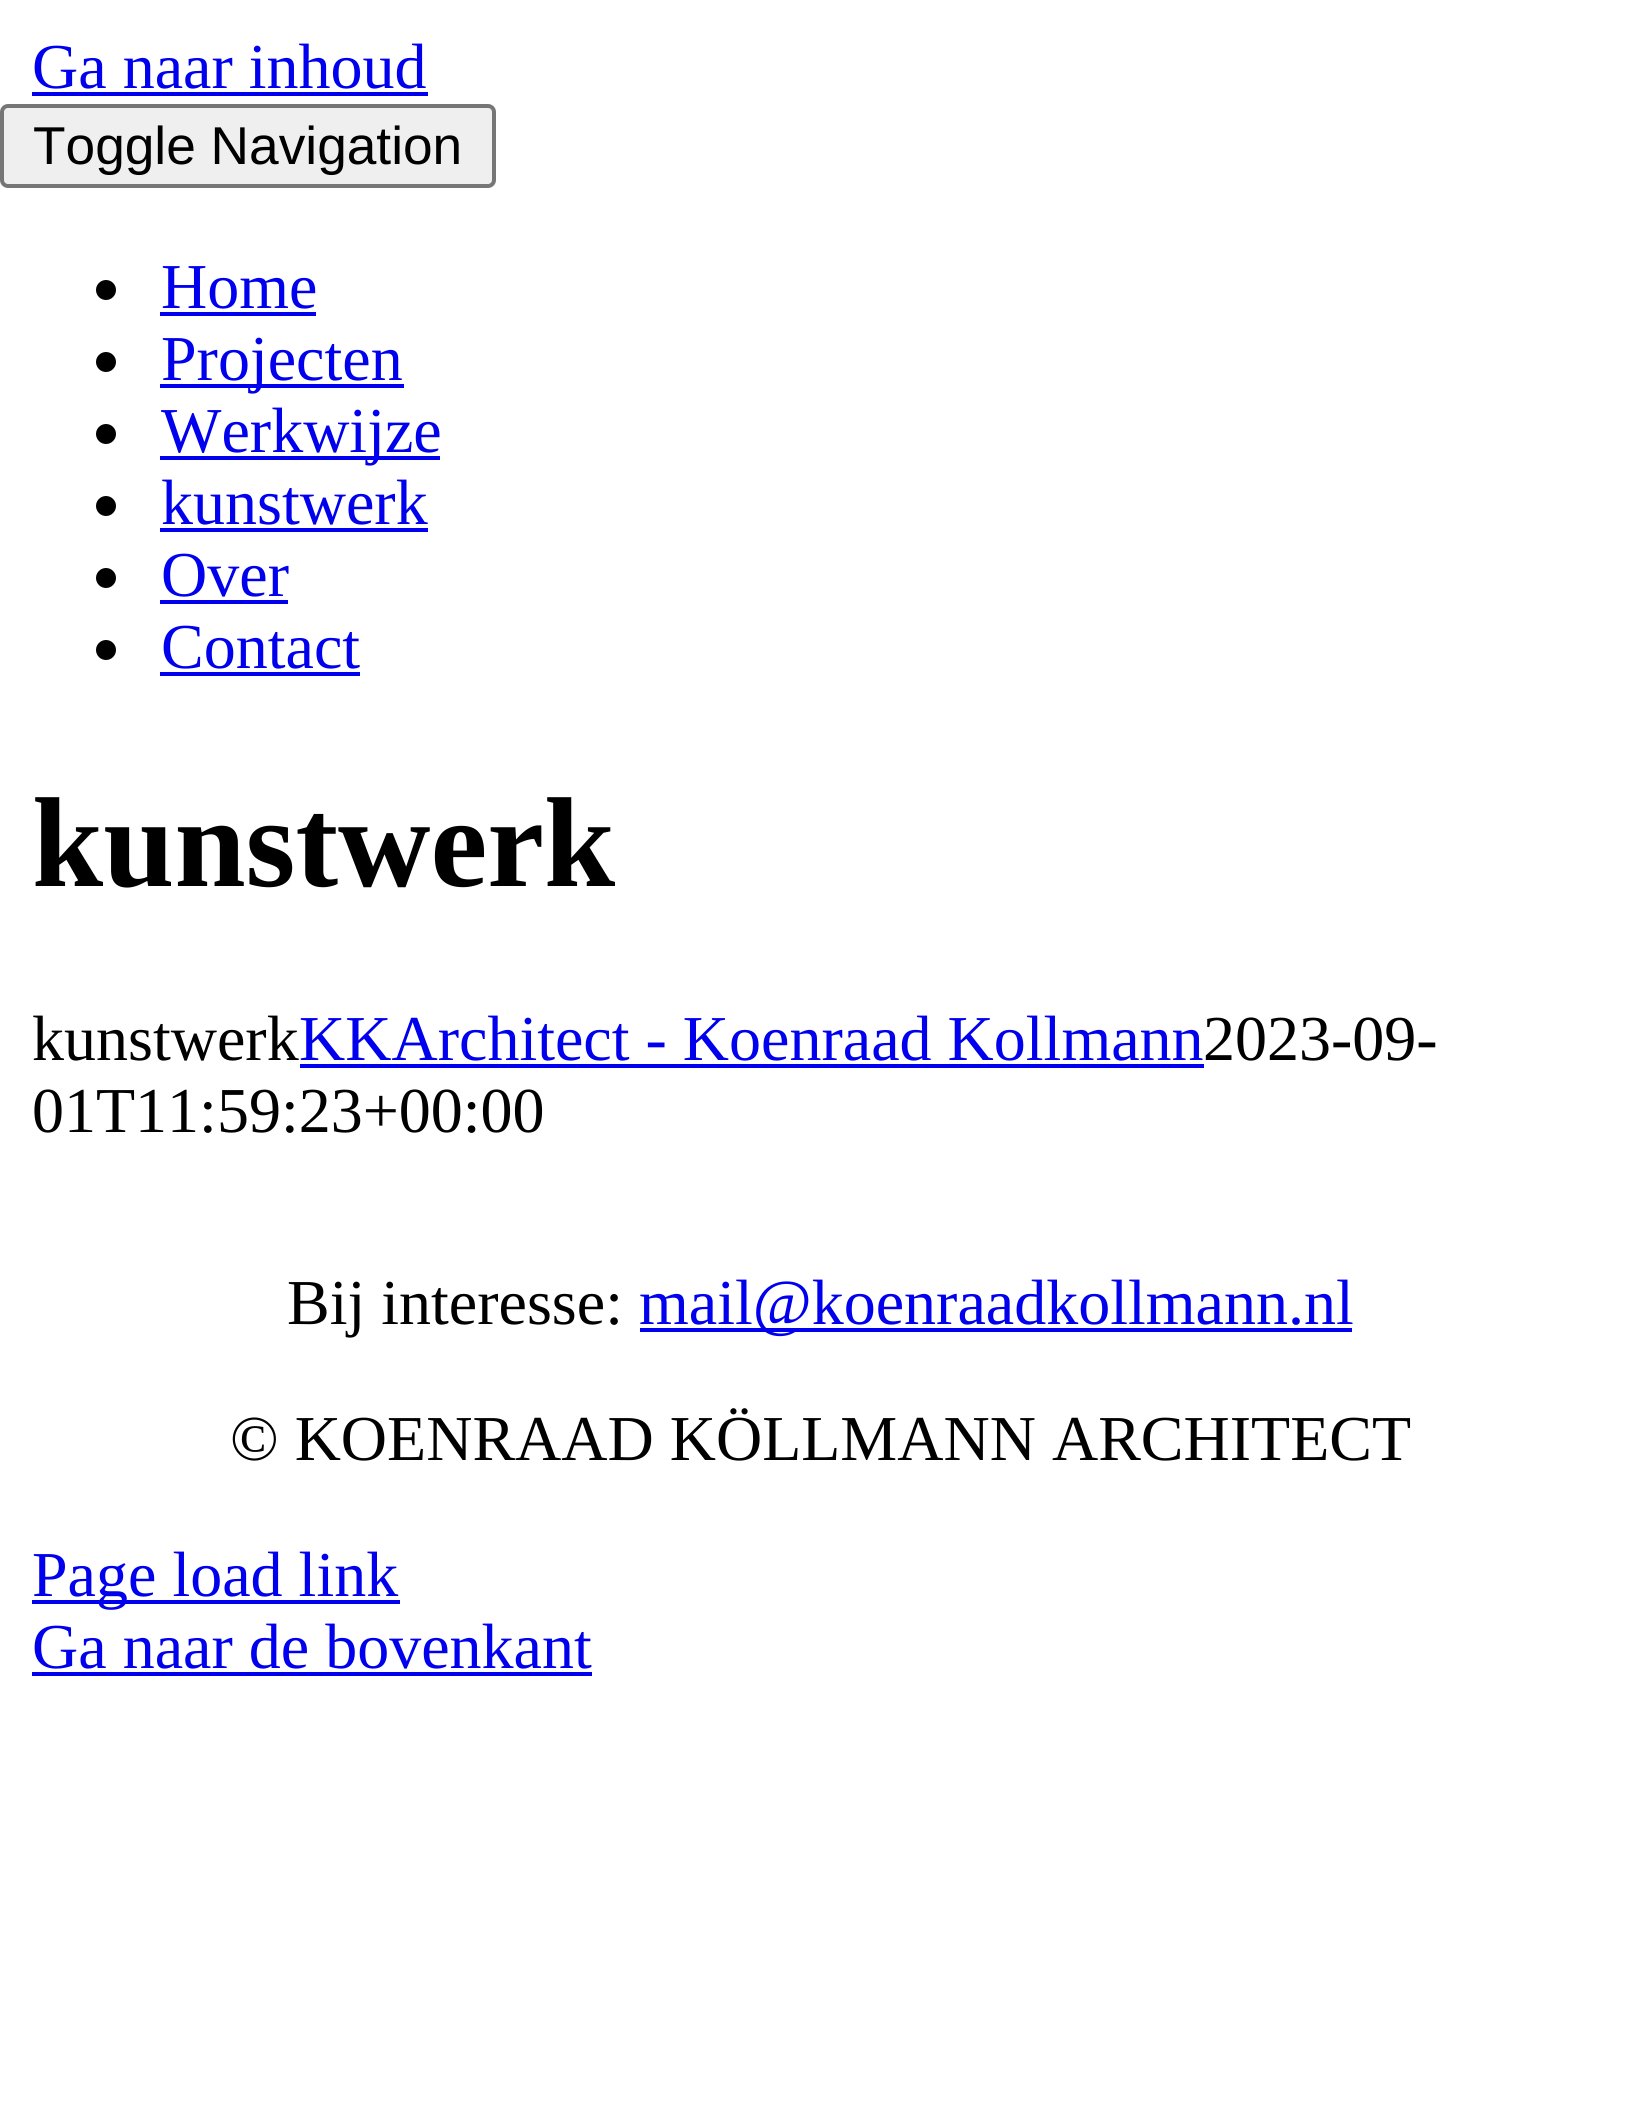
#include <cairo/cairo.h>
#include <math.h>
#include <stddef.h>


static void rounded_rect(cairo_t *cr, double x, double y, double w, double h, double r) {
  cairo_new_sub_path(cr);
  cairo_arc(cr, x + w - r, y + h - r, r, 0, M_PI / 2);
  cairo_arc(cr, x + r, y + h - r, r, M_PI / 2, M_PI);
  cairo_arc(cr, x + r, y + r, r, M_PI, 1.5 * M_PI);
  cairo_arc(cr, x + w - r, y + r, r, 1.5 * M_PI, 2 * M_PI);
  cairo_close_path(cr);
}

static void draw(cairo_t *cr) {
  cairo_set_source_rgb(cr, 1, 1, 1);
  cairo_paint(cr);
  cairo_set_source_rgb(cr, 0, 0, 238 / 255.0);
  cairo_rectangle(cr, 32, 92, 396, 4);
  cairo_fill(cr);
  cairo_set_source_rgb(cr, 239 / 255.0, 239 / 255.0, 239 / 255.0);
  rounded_rect(cr, 2, 106, 492, 80, 6);
  cairo_fill_preserve(cr);
  cairo_set_source_rgb(cr, 118 / 255.0, 118 / 255.0, 118 / 255.0);
  cairo_set_line_width(cr, 4);
  cairo_stroke(cr);
  cairo_set_source_rgb(cr, 0, 0, 0);
  cairo_arc(cr, 106, 290, 10, 0, 2 * M_PI);
  cairo_fill(cr);
  cairo_set_source_rgb(cr, 0, 0, 238 / 255.0);
  cairo_rectangle(cr, 160, 312, 156, 4);
  cairo_fill(cr);
  cairo_set_source_rgb(cr, 0, 0, 0);
  cairo_arc(cr, 106, 362, 10, 0, 2 * M_PI);
  cairo_fill(cr);
  cairo_set_source_rgb(cr, 0, 0, 238 / 255.0);
  cairo_rectangle(cr, 160, 384, 244, 4);
  cairo_fill(cr);
  cairo_set_source_rgb(cr, 0, 0, 0);
  cairo_arc(cr, 106, 434, 10, 0, 2 * M_PI);
  cairo_fill(cr);
  cairo_set_source_rgb(cr, 0, 0, 238 / 255.0);
  cairo_rectangle(cr, 160, 456, 280, 4);
  cairo_fill(cr);
  cairo_set_source_rgb(cr, 0, 0, 0);
  cairo_arc(cr, 106, 506, 10, 0, 2 * M_PI);
  cairo_fill(cr);
  cairo_set_source_rgb(cr, 0, 0, 238 / 255.0);
  cairo_rectangle(cr, 160, 528, 268, 4);
  cairo_fill(cr);
  cairo_set_source_rgb(cr, 0, 0, 0);
  cairo_arc(cr, 106, 578, 10, 0, 2 * M_PI);
  cairo_fill(cr);
  cairo_set_source_rgb(cr, 0, 0, 238 / 255.0);
  cairo_rectangle(cr, 160, 600, 128, 4);
  cairo_fill(cr);
  cairo_set_source_rgb(cr, 0, 0, 0);
  cairo_arc(cr, 106, 650, 10, 0, 2 * M_PI);
  cairo_fill(cr);
  cairo_set_source_rgb(cr, 0, 0, 238 / 255.0);
  cairo_rectangle(cr, 160, 672, 200, 4);
  cairo_fill(cr);
  cairo_rectangle(cr, 300, 1064, 904, 4);
  cairo_fill(cr);
  cairo_rectangle(cr, 640, 1328, 712, 4);
  cairo_fill(cr);
  cairo_rectangle(cr, 32, 1600, 368, 4);
  cairo_fill(cr);
  cairo_rectangle(cr, 32, 1672, 560, 4);
  cairo_fill(cr);
  cairo_select_font_face(cr, "Liberation Serif", CAIRO_FONT_SLANT_NORMAL, CAIRO_FONT_WEIGHT_NORMAL);
  cairo_set_font_size(cr, 64);
  cairo_move_to(cr, 32, 88);
  cairo_show_text(cr, "Ga naar inhoud");
  cairo_select_font_face(cr, "Liberation Sans", CAIRO_FONT_SLANT_NORMAL, CAIRO_FONT_WEIGHT_NORMAL);
  cairo_set_font_size(cr, 53.25);
  cairo_set_source_rgb(cr, 0, 0, 0);
  cairo_move_to(cr, 33, 164);
  cairo_show_text(cr, "Toggle Navigation");
  cairo_select_font_face(cr, "Liberation Serif", CAIRO_FONT_SLANT_NORMAL, CAIRO_FONT_WEIGHT_NORMAL);
  cairo_set_font_size(cr, 64);
  cairo_set_source_rgb(cr, 0, 0, 238 / 255.0);
  cairo_move_to(cr, 161, 308);
  cairo_show_text(cr, "Home");
  cairo_move_to(cr, 161, 380);
  cairo_show_text(cr, "Projecten");
  cairo_move_to(cr, 161, 452);
  cairo_show_text(cr, "Werkwijze");
  cairo_move_to(cr, 161, 524);
  cairo_show_text(cr, "kunstwerk");
  cairo_move_to(cr, 161, 596);
  cairo_show_text(cr, "Over");
  cairo_move_to(cr, 161, 668);
  cairo_show_text(cr, "Contact");
  cairo_select_font_face(cr, "Liberation Serif", CAIRO_FONT_SLANT_NORMAL, CAIRO_FONT_WEIGHT_BOLD);
  cairo_set_font_size(cr, 128);
  cairo_set_source_rgb(cr, 0, 0, 0);
  cairo_move_to(cr, 32, 886);
  cairo_show_text(cr, "kunstwerk");
  cairo_select_font_face(cr, "Liberation Serif", CAIRO_FONT_SLANT_NORMAL, CAIRO_FONT_WEIGHT_NORMAL);
  cairo_set_font_size(cr, 64);
  cairo_move_to(cr, 32, 1060);
  cairo_show_text(cr, "kunstwerk");
  cairo_set_source_rgb(cr, 0, 0, 238 / 255.0);
  cairo_move_to(cr, 299, 1060);
  cairo_show_text(cr, "KKArchitect - Koenraad Kollmann");
  cairo_set_source_rgb(cr, 0, 0, 0);
  cairo_move_to(cr, 1203, 1060);
  cairo_show_text(cr, "2023-09-");
  cairo_move_to(cr, 32, 1132);
  cairo_show_text(cr, "01T11:59:23+00:00");
  cairo_move_to(cr, 287, 1324);
  cairo_show_text(cr, "Bij interesse:");
  cairo_set_source_rgb(cr, 0, 0, 238 / 255.0);
  cairo_move_to(cr, 639, 1324);
  cairo_show_text(cr, "mail@koenraadkollmann.nl");
  cairo_set_source_rgb(cr, 0, 0, 0);
  cairo_move_to(cr, 230, 1460);
  cairo_show_text(cr, "© KOENRAAD KÖLLMANN ARCHITECT");
  cairo_set_source_rgb(cr, 0, 0, 238 / 255.0);
  cairo_move_to(cr, 32, 1596);
  cairo_show_text(cr, "Page load link");
  cairo_move_to(cr, 32, 1668);
  cairo_show_text(cr, "Ga naar de bovenkant");
}

int main(void) {
  cairo_surface_t *surface = cairo_image_surface_create(CAIRO_FORMAT_RGB24, 1640, 2119);
  cairo_t *cr = cairo_create(surface);
  cairo_font_options_t *options = cairo_font_options_create();
  cairo_font_options_set_hint_metrics(options, CAIRO_HINT_METRICS_OFF);
  cairo_font_options_set_hint_style(options, CAIRO_HINT_STYLE_NONE);
  cairo_set_font_options(cr, options);
  cairo_set_miter_limit(cr, 4);
  draw(cr);
  cairo_surface_write_to_png(surface, "out.png");
  cairo_font_options_destroy(options);
  cairo_destroy(cr);
  cairo_surface_destroy(surface);
  return 0;
}
